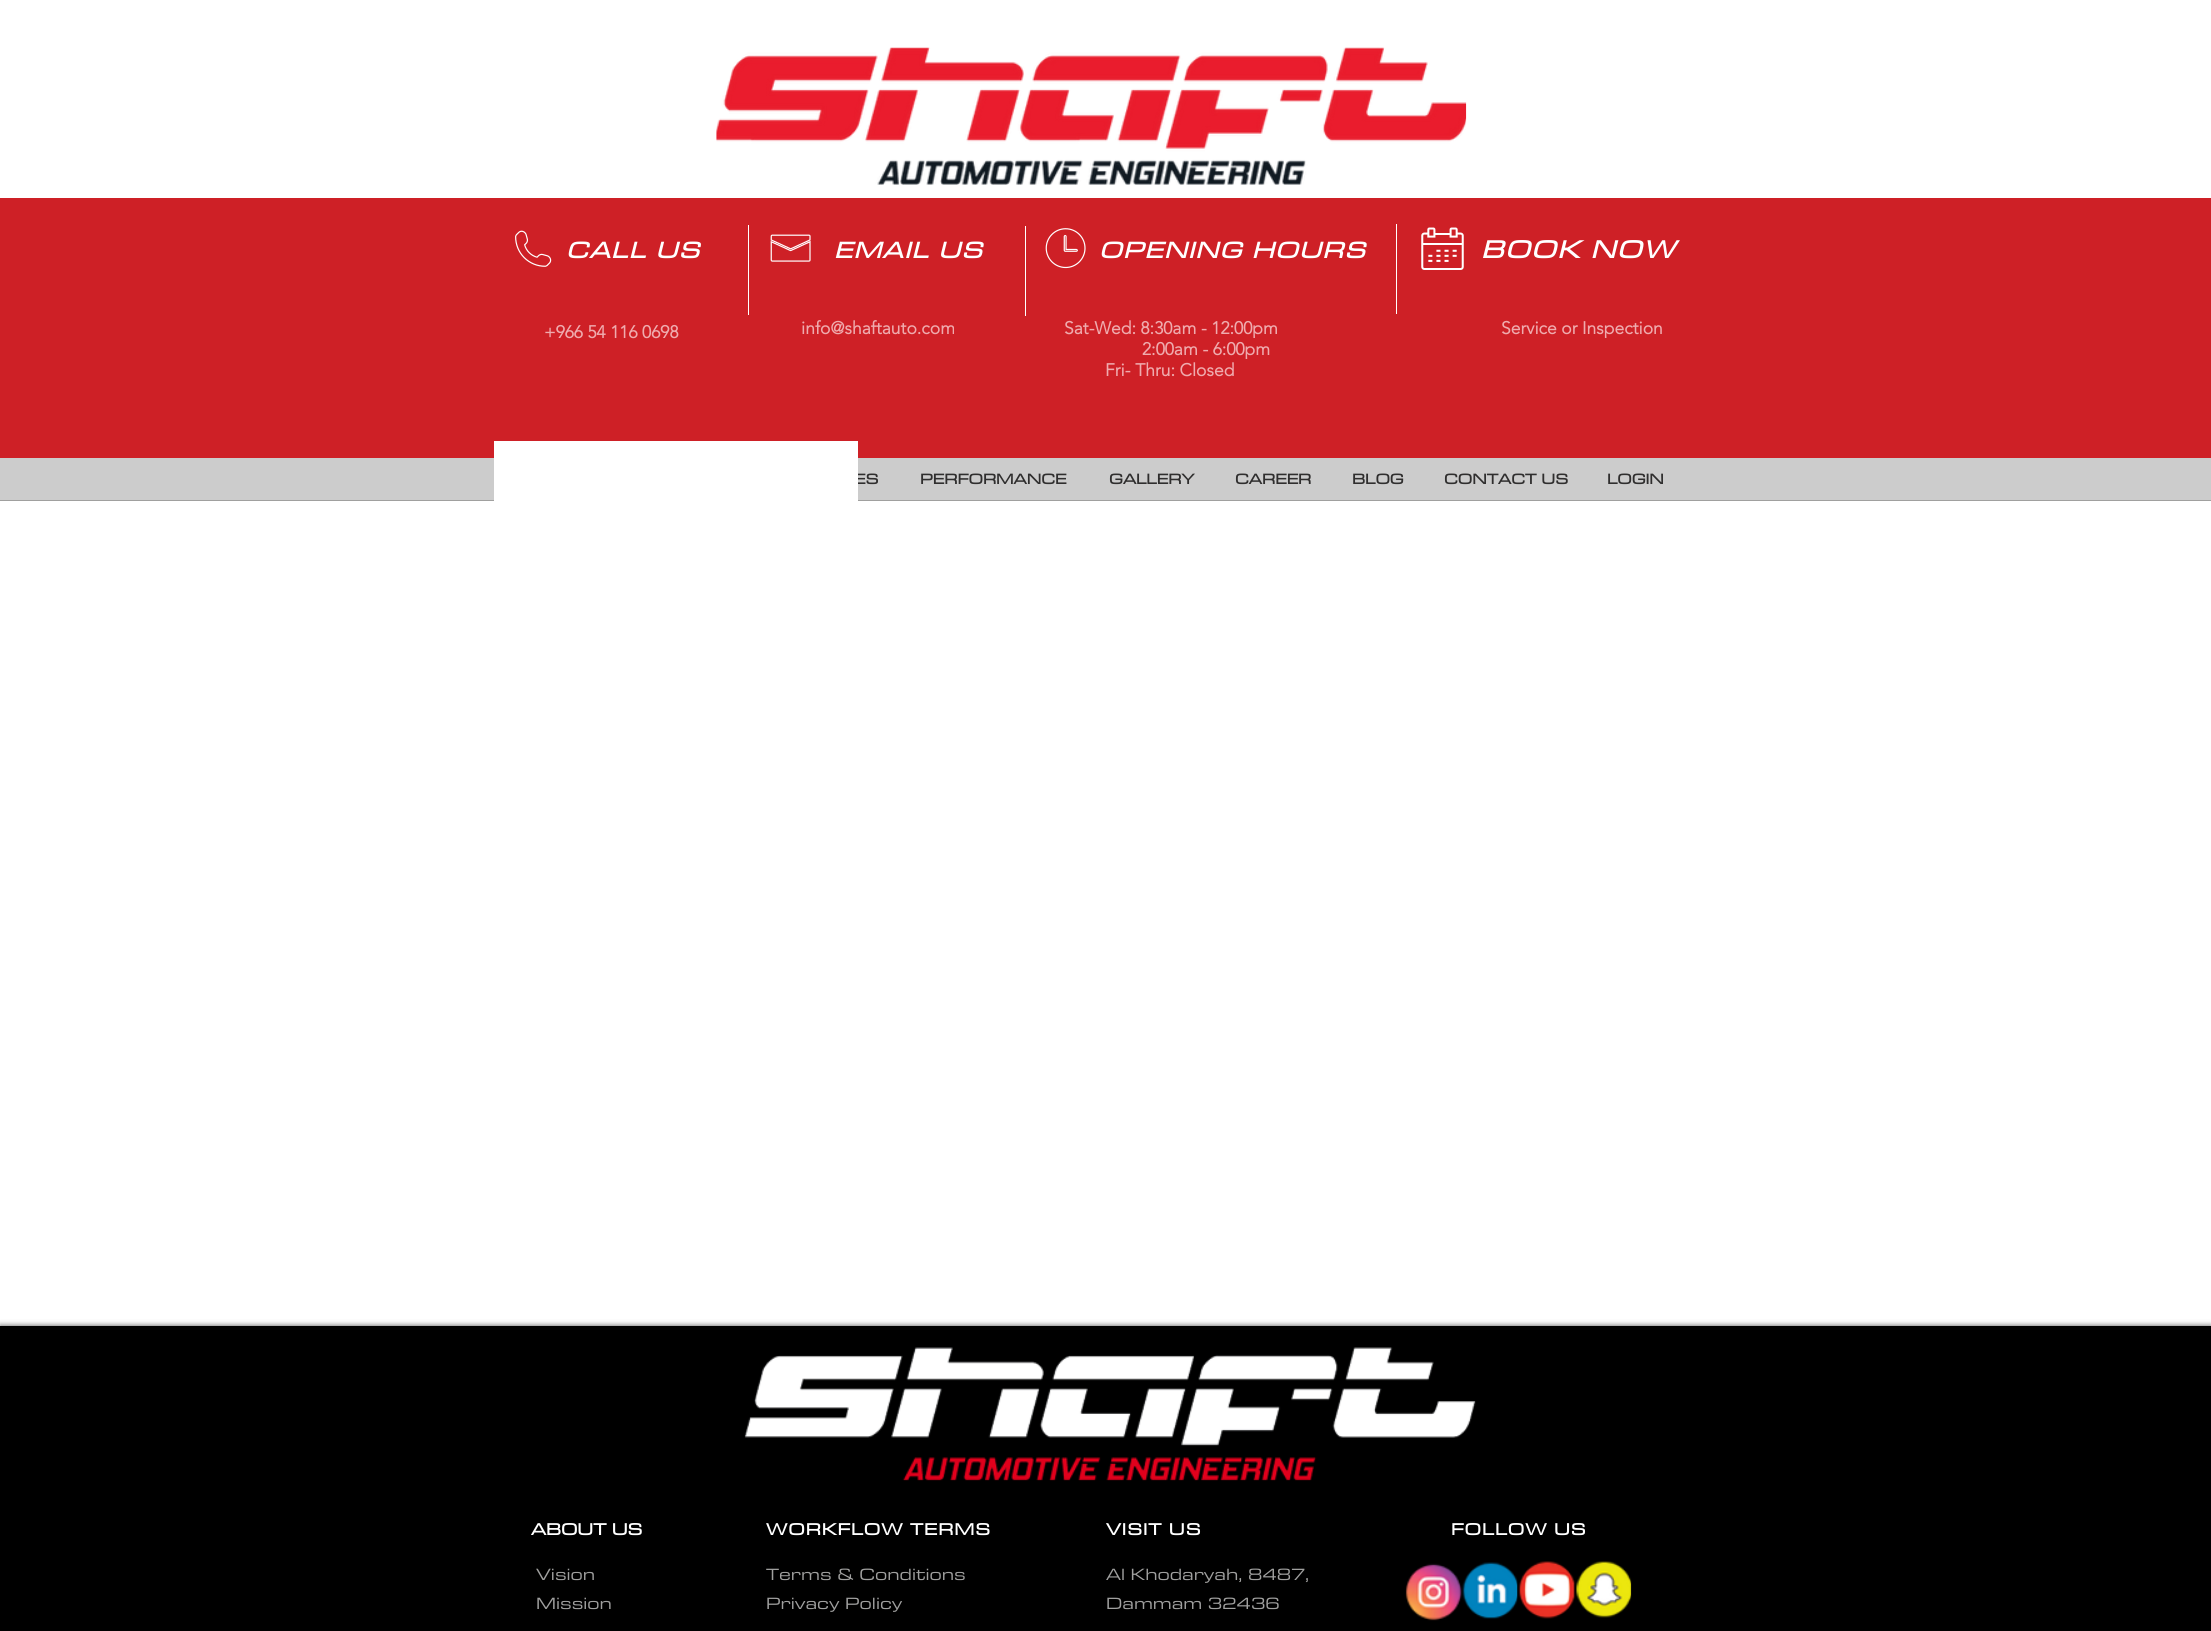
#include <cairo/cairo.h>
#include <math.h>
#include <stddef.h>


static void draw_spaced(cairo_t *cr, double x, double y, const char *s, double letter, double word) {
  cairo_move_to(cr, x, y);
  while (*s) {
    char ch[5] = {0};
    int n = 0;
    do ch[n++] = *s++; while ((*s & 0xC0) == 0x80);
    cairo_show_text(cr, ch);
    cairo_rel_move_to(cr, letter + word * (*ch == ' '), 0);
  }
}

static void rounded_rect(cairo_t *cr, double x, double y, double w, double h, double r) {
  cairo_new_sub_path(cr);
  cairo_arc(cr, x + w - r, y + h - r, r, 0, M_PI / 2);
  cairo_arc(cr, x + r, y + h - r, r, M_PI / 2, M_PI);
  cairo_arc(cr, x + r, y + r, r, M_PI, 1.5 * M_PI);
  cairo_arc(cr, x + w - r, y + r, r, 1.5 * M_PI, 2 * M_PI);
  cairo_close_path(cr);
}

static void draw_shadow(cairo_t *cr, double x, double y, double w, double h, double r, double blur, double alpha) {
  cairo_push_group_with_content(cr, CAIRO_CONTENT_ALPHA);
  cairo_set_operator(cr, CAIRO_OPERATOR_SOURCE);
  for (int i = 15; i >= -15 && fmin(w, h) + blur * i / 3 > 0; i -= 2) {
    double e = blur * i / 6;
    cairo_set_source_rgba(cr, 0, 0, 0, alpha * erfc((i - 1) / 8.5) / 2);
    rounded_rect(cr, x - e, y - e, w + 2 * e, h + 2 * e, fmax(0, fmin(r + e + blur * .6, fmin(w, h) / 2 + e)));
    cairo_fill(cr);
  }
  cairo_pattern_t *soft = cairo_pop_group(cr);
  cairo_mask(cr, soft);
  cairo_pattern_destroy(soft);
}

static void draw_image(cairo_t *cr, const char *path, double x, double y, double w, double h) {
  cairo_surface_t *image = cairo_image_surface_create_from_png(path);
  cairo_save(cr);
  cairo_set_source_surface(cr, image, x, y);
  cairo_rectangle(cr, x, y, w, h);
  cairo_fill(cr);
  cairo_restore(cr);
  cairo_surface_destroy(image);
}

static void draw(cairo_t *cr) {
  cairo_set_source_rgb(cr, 1, 1, 1);
  cairo_paint(cr);
  draw_image(cr, "images/1.png", 716, 47, 751, 138);
  cairo_set_source_rgb(cr, 206 / 255.0, 32 / 255.0, 38 / 255.0);
  cairo_rectangle(cr, 0, 198, 2211, 260);
  cairo_fill(cr);
  draw_image(cr, "images/2.png", 515, 230, 37, 37);
  cairo_set_source_rgb(cr, 1, 1, 1);
  cairo_rectangle(cr, 748, 225, 1, 90);
  cairo_fill(cr);
  draw_image(cr, "images/3.png", 770, 234, 41, 28);
  cairo_rectangle(cr, 1025, 226, 1, 90);
  cairo_fill(cr);
  draw_image(cr, "images/4.png", 1045, 228, 41, 41);
  cairo_rectangle(cr, 1396, 224, 1, 90);
  cairo_fill(cr);
  draw_image(cr, "images/5.png", 1421, 227, 43, 43);
  cairo_set_source_rgb(cr, 204 / 255.0, 204 / 255.0, 204 / 255.0);
  cairo_rectangle(cr, 0, 458, 2211, 42);
  cairo_fill(cr);
  cairo_set_source_rgb(cr, 160 / 255.0, 160 / 255.0, 159 / 255.0);
  cairo_rectangle(cr, 0, 500, 2211, 1);
  cairo_fill(cr);
  cairo_set_source_rgb(cr, 0, 0, 0);
  draw_shadow(cr, 0, 1326, 2211, 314, 0, 3, 0.7);
  cairo_set_source_rgb(cr, 0, 0, 0);
  cairo_rectangle(cr, 0, 1326, 2211, 305);
  cairo_fill(cr);
  draw_image(cr, "images/6.png", 744, 1347, 732, 134);
  draw_image(cr, "images/7.png", 1405, 1563, 57, 58);
  draw_image(cr, "images/8.png", 1462, 1562, 56, 57);
  draw_image(cr, "images/9.png", 1518, 1561, 58, 58);
  draw_image(cr, "images/10.png", 1576, 1561, 56, 57);
  cairo_select_font_face(cr, "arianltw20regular", CAIRO_FONT_SLANT_ITALIC, CAIRO_FONT_WEIGHT_BOLD);
  cairo_set_font_size(cr, 27.5);
  cairo_set_source_rgb(cr, 1, 1, 1);
  draw_spaced(cr, 566, 258, "CALL US", 1.4, 0);
  draw_spaced(cr, 834, 258, "EMAIL US", 1.4, 0);
  draw_spaced(cr, 1099, 258, "OPENING HOURS", 1.4, 0);
  cairo_set_font_size(cr, 30);
  draw_spaced(cr, 1481, 258, "BOOK NOW", 1.5, 0);
  cairo_select_font_face(cr, "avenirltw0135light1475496", CAIRO_FONT_SLANT_NORMAL, CAIRO_FONT_WEIGHT_BOLD);
  cairo_set_font_size(cr, 17.5);
  cairo_set_source_rgb(cr, 239 / 255.0, 171 / 255.0, 174 / 255.0);
  cairo_move_to(cr, 544, 338);
  cairo_show_text(cr, "+966 54 116 0698");
  cairo_move_to(cr, 801, 334);
  cairo_show_text(cr, "info@shaftauto.com");
  cairo_move_to(cr, 1064, 334);
  cairo_show_text(cr, "Sat-Wed: 8:30am - 12:00pm");
  cairo_move_to(cr, 1142, 355);
  cairo_show_text(cr, "2:00am - 6:00pm");
  cairo_move_to(cr, 1105, 376);
  cairo_show_text(cr, "Fri- Thru: Closed");
  cairo_move_to(cr, 1501, 334);
  cairo_show_text(cr, "Service or Inspection");
  cairo_select_font_face(cr, "arianltw20regular", CAIRO_FONT_SLANT_NORMAL, CAIRO_FONT_WEIGHT_BOLD);
  cairo_set_source_rgb(cr, 47 / 255.0, 46 / 255.0, 46 / 255.0);
  cairo_move_to(cr, 854, 484);
  cairo_show_text(cr, "ES");
  cairo_move_to(cr, 920, 484);
  cairo_show_text(cr, "PERFORMANCE");
  cairo_move_to(cr, 1109, 484);
  cairo_show_text(cr, "GALLERY");
  cairo_move_to(cr, 1235, 484);
  cairo_show_text(cr, "CAREER");
  cairo_move_to(cr, 1352, 484);
  cairo_show_text(cr, "BLOG");
  cairo_move_to(cr, 1444, 484);
  cairo_show_text(cr, "CONTACT US");
  cairo_move_to(cr, 1607, 484);
  cairo_show_text(cr, "LOGIN");
  cairo_set_source_rgb(cr, 1, 1, 1);
  cairo_rectangle(cr, 494, 441, 364, 60);
  cairo_fill(cr);
  cairo_set_font_size(cr, 20);
  cairo_move_to(cr, 531, 1535);
  cairo_show_text(cr, "ABOUT US");
  draw_spaced(cr, 766, 1535, "WORKFLOW TERMS", 1, 0);
  draw_spaced(cr, 1106, 1535, "VISIT US", 1, 0);
  draw_spaced(cr, 1451, 1535, "FOLLOW US", 1, 0);
  cairo_select_font_face(cr, "arianltw20regular", CAIRO_FONT_SLANT_NORMAL, CAIRO_FONT_WEIGHT_NORMAL);
  cairo_set_source_rgb(cr, 160 / 255.0, 160 / 255.0, 159 / 255.0);
  cairo_move_to(cr, 536, 1580);
  cairo_show_text(cr, "Vision");
  cairo_move_to(cr, 536, 1609);
  cairo_show_text(cr, "Mission");
  cairo_move_to(cr, 766, 1580);
  cairo_show_text(cr, "Terms & Conditions");
  cairo_move_to(cr, 766, 1609);
  cairo_show_text(cr, "Privacy Policy");
  cairo_move_to(cr, 1106, 1580);
  cairo_show_text(cr, "Al Khodaryah, 8487,");
  cairo_move_to(cr, 1106, 1609);
  cairo_show_text(cr, "Dammam 32436");
}

int main(void) {
  cairo_surface_t *surface = cairo_image_surface_create(CAIRO_FORMAT_RGB24, 2211, 1631);
  cairo_t *cr = cairo_create(surface);
  cairo_font_options_t *options = cairo_font_options_create();
  cairo_font_options_set_hint_metrics(options, CAIRO_HINT_METRICS_OFF);
  cairo_font_options_set_hint_style(options, CAIRO_HINT_STYLE_NONE);
  cairo_set_font_options(cr, options);
  cairo_set_miter_limit(cr, 4);
  draw(cr);
  cairo_surface_write_to_png(surface, "out.png");
  cairo_font_options_destroy(options);
  cairo_destroy(cr);
  cairo_surface_destroy(surface);
  return 0;
}
